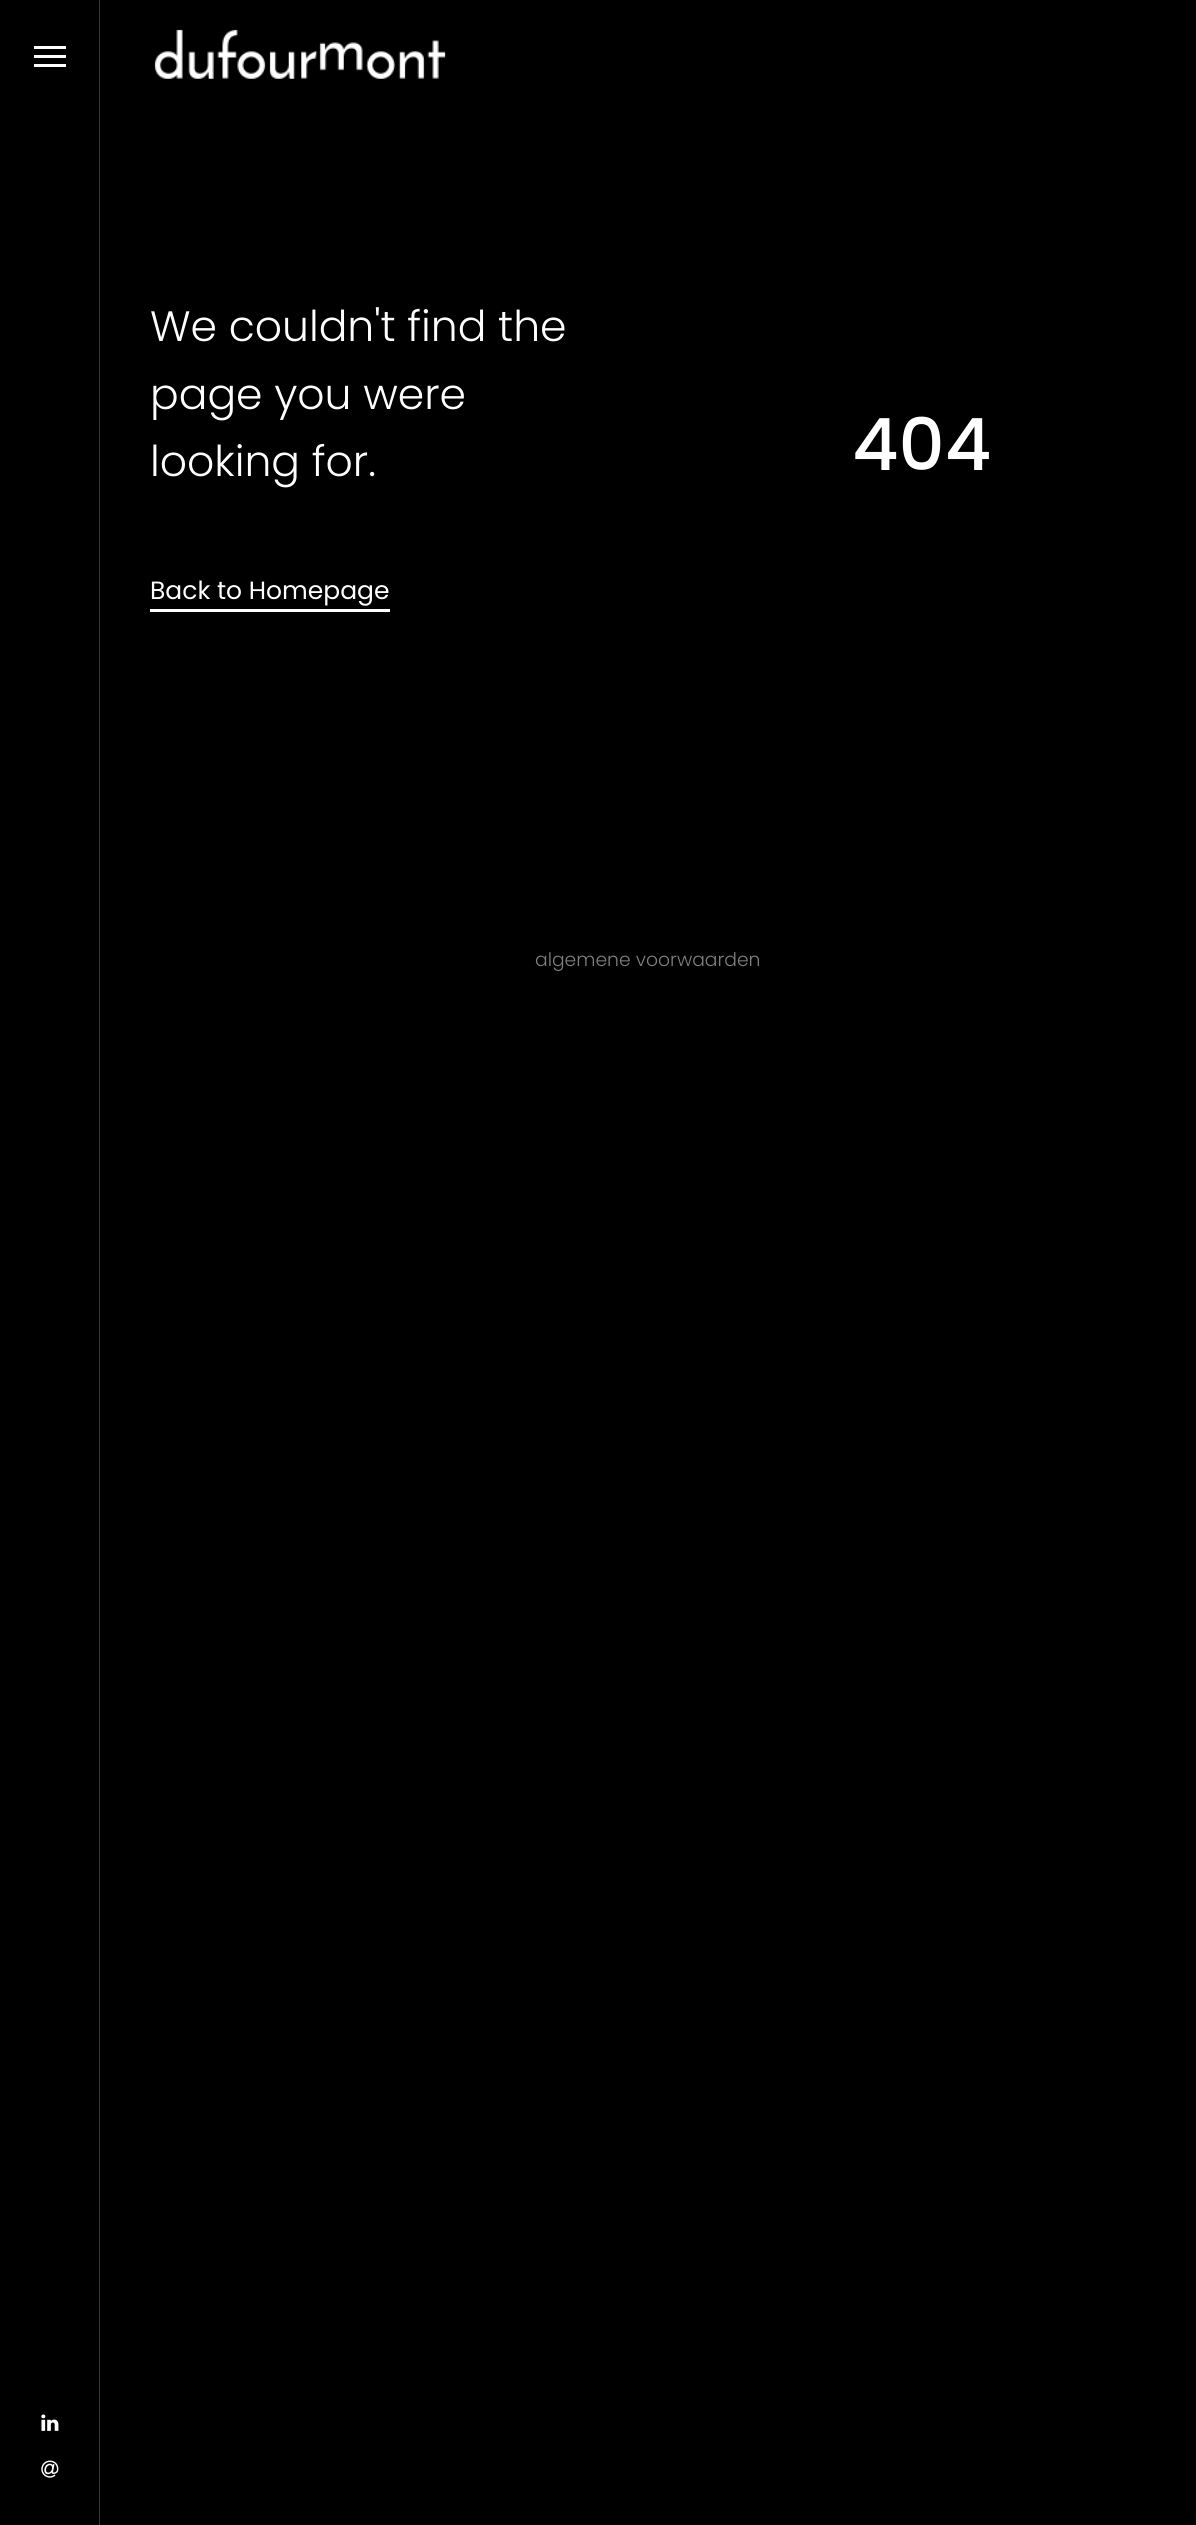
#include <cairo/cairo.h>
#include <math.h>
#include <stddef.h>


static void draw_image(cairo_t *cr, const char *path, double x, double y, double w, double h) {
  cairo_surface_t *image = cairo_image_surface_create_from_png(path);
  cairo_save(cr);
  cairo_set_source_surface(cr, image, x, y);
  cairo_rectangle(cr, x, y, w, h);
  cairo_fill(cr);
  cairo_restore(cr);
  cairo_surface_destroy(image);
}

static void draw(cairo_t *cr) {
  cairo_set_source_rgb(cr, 0, 0, 0);
  cairo_paint(cr);
  cairo_set_source_rgb(cr, 54 / 255.0, 54 / 255.0, 54 / 255.0);
  cairo_rectangle(cr, 99, 0, 1, 2525);
  cairo_fill(cr);
  cairo_set_source_rgb(cr, 1, 1, 1);
  cairo_rectangle(cr, 34, 55, 32, 3);
  cairo_fill(cr);
  cairo_rectangle(cr, 34, 46, 32, 3);
  cairo_fill(cr);
  cairo_rectangle(cr, 34, 64, 32, 3);
  cairo_fill(cr);
  draw_image(cr, "images/1.png", 154, 29, 292, 50);
  draw_image(cr, "images/2.png", 41, 2414, 18, 17);
  draw_image(cr, "images/3.png", 41, 2460, 18, 18);
  cairo_rectangle(cr, 150, 609, 240, 3);
  cairo_fill(cr);
  cairo_select_font_face(cr, "Poppins Light", CAIRO_FONT_SLANT_NORMAL, CAIRO_FONT_WEIGHT_NORMAL);
  cairo_set_font_size(cr, 42.5);
  cairo_move_to(cr, 150, 341);
  cairo_show_text(cr, "We couldn't find the");
  cairo_move_to(cr, 150, 409);
  cairo_show_text(cr, "page you were");
  cairo_move_to(cr, 150, 476);
  cairo_show_text(cr, "looking for.");
  cairo_select_font_face(cr, "Poppins", CAIRO_FONT_SLANT_NORMAL, CAIRO_FONT_WEIGHT_NORMAL);
  cairo_set_font_size(cr, 25);
  cairo_move_to(cr, 150, 599);
  cairo_show_text(cr, "Back to Homepage");
  cairo_select_font_face(cr, "Poppins Medium", CAIRO_FONT_SLANT_NORMAL, CAIRO_FONT_WEIGHT_NORMAL);
  cairo_set_font_size(cr, 72);
  cairo_move_to(cr, 852, 470);
  cairo_show_text(cr, "404");
  cairo_select_font_face(cr, "Poppins Light", CAIRO_FONT_SLANT_NORMAL, CAIRO_FONT_WEIGHT_NORMAL);
  cairo_set_font_size(cr, 18.75);
  cairo_set_source_rgb(cr, 128 / 255.0, 128 / 255.0, 128 / 255.0);
  cairo_move_to(cr, 535, 966);
  cairo_show_text(cr, "algemene voorwaarden");
}

int main(void) {
  cairo_surface_t *surface = cairo_image_surface_create(CAIRO_FORMAT_RGB24, 1196, 2525);
  cairo_t *cr = cairo_create(surface);
  cairo_font_options_t *options = cairo_font_options_create();
  cairo_font_options_set_hint_metrics(options, CAIRO_HINT_METRICS_OFF);
  cairo_font_options_set_hint_style(options, CAIRO_HINT_STYLE_NONE);
  cairo_set_font_options(cr, options);
  cairo_set_miter_limit(cr, 4);
  draw(cr);
  cairo_surface_write_to_png(surface, "out.png");
  cairo_font_options_destroy(options);
  cairo_destroy(cr);
  cairo_surface_destroy(surface);
  return 0;
}
